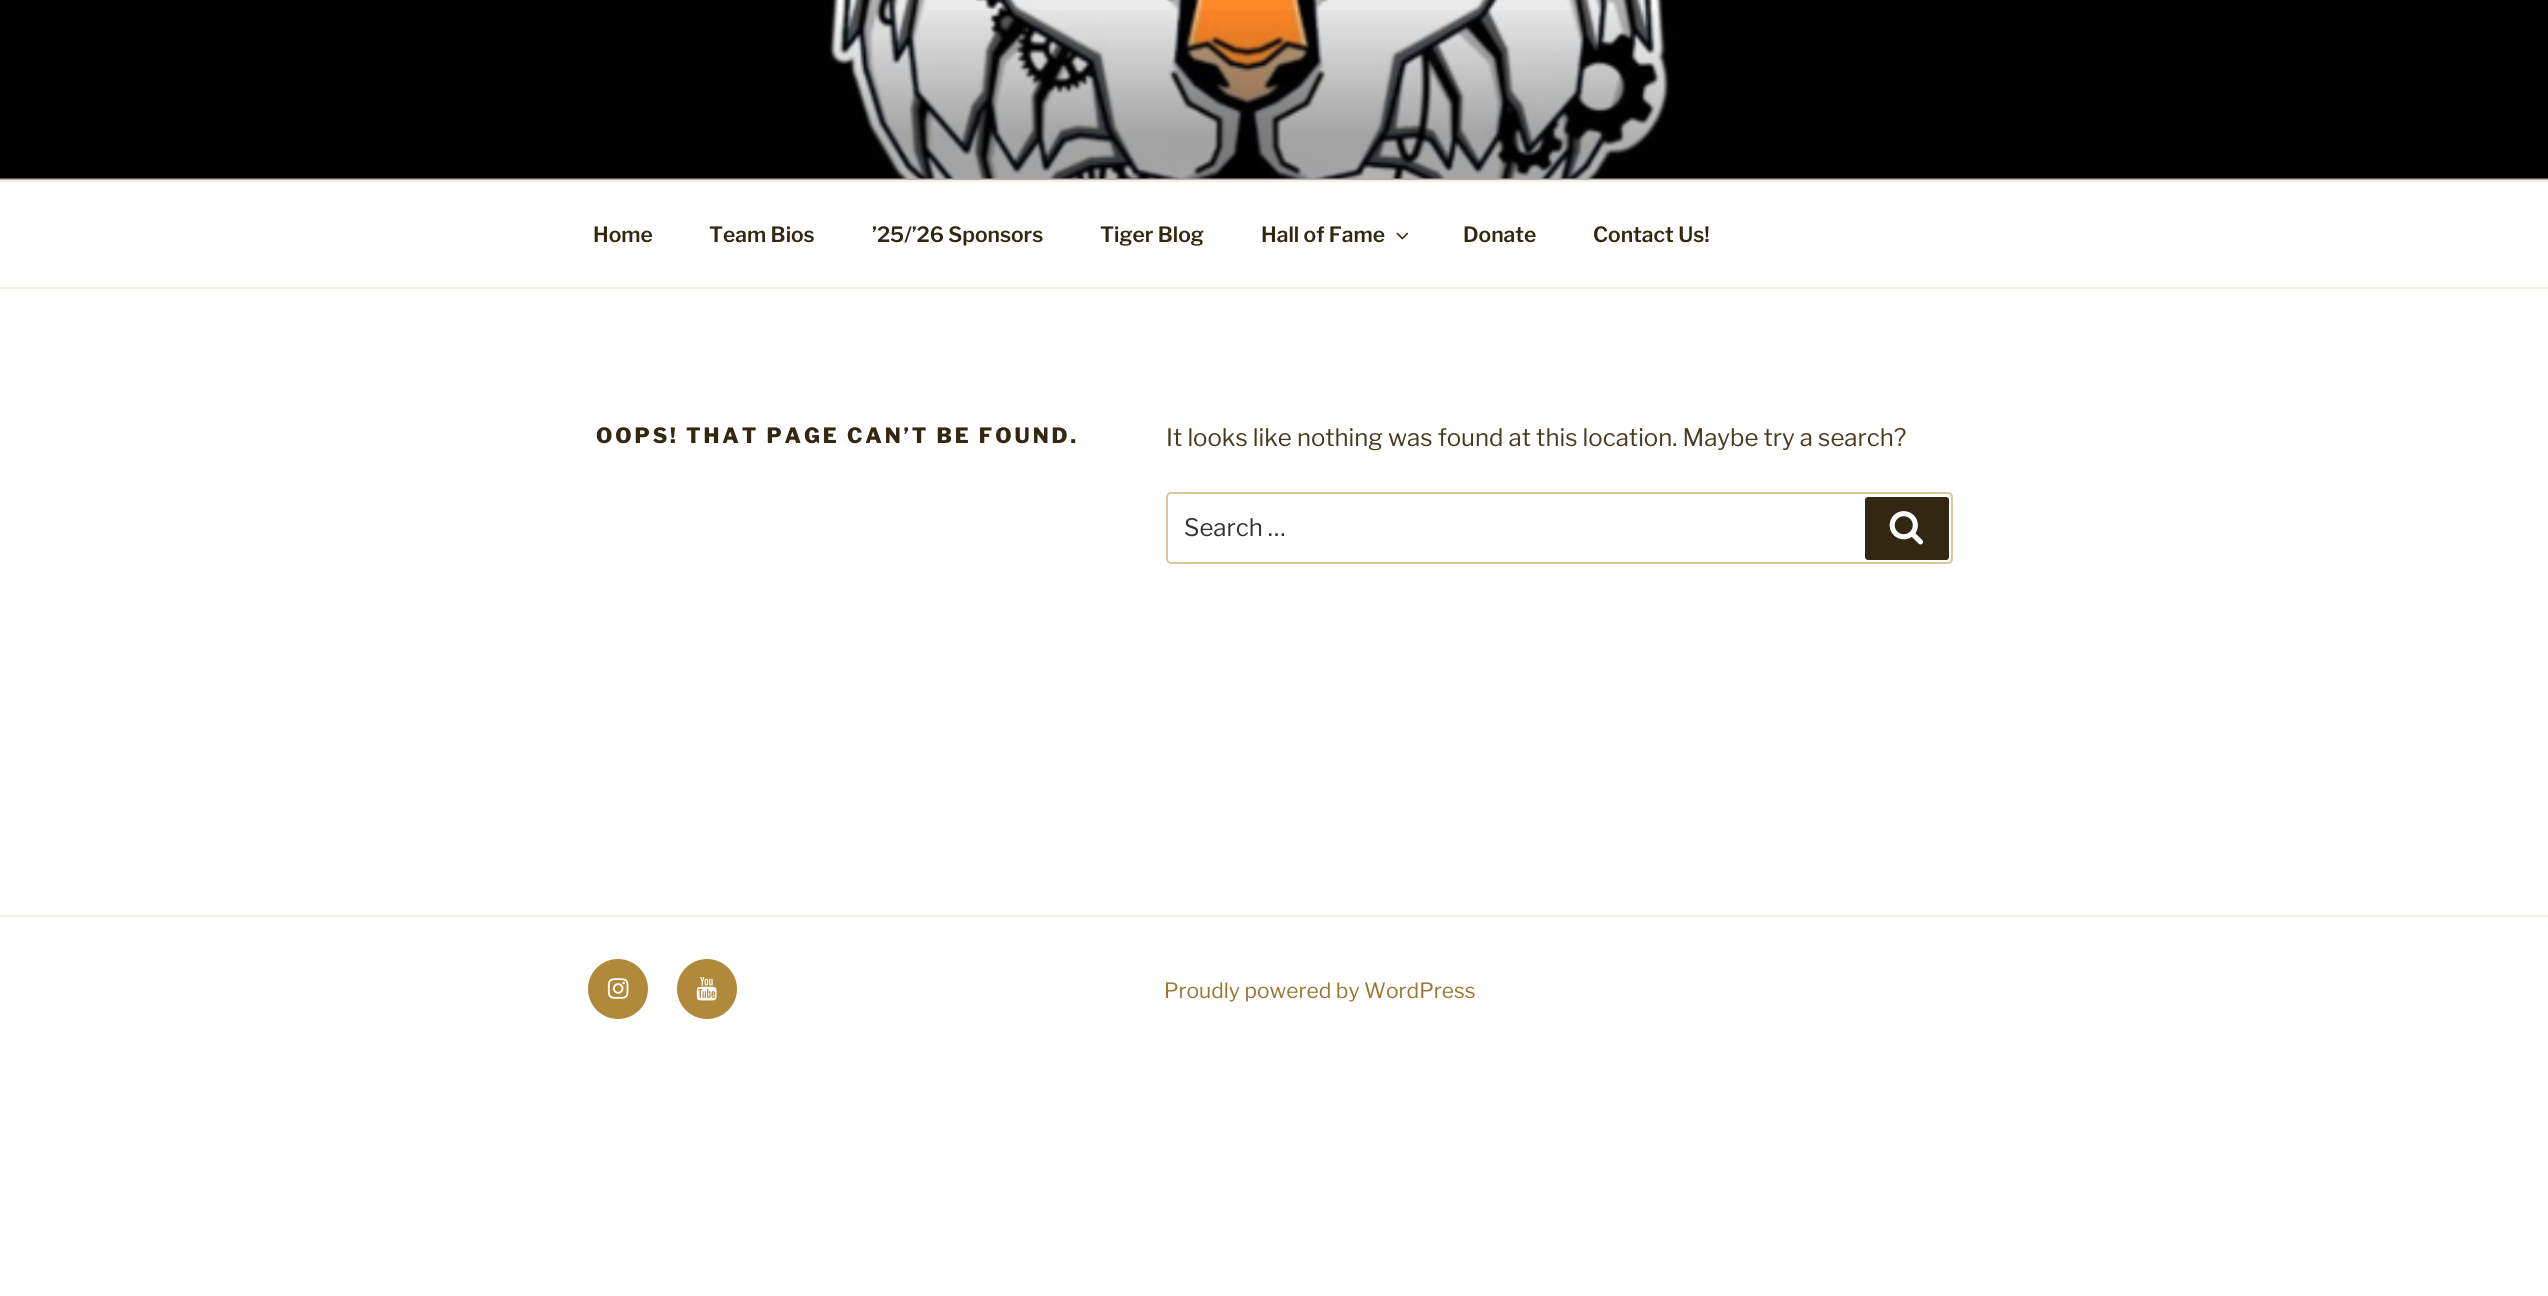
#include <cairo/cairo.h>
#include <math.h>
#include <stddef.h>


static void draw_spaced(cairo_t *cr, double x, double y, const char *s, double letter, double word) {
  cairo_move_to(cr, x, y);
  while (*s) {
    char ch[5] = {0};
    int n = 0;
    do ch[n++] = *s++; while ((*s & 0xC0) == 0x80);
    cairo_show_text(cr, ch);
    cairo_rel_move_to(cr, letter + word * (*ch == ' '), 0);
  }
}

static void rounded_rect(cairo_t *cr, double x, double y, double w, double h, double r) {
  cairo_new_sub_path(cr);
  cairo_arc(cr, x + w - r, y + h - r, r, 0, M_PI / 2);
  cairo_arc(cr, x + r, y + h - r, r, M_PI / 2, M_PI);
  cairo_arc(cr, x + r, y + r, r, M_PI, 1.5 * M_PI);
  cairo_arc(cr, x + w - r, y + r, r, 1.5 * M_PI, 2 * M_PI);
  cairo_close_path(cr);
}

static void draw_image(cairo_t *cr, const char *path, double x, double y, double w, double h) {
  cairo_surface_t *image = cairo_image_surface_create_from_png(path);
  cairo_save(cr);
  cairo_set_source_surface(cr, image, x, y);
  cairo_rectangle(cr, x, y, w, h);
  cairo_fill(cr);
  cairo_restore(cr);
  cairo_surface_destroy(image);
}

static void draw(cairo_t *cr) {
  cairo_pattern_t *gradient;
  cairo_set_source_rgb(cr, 1, 1, 1);
  cairo_paint(cr);
  cairo_set_source_rgb(cr, 252 / 255.0, 251 / 255.0, 247 / 255.0);
  cairo_rectangle(cr, 0, 178, 2548, 2);
  cairo_fill(cr);
  draw_image(cr, "images/1.png", 0, 0, 2548, 179);
  gradient = cairo_pattern_create_linear(1274, 0, 1274, 180);
  cairo_pattern_add_color_stop_rgba(gradient, 0, 0, 0, 0, 0);
  cairo_pattern_add_color_stop_rgba(gradient, 0.75, 0, 0, 0, 0.3);
  cairo_pattern_add_color_stop_rgba(gradient, 1, 0, 0, 0, 0.3);
  cairo_set_source(cr, gradient);
  cairo_pattern_destroy(gradient);
  cairo_rectangle(cr, 0, 10, 2548, 170);
  cairo_fill(cr);
  cairo_set_source_rgb(cr, 246 / 255.0, 240 / 255.0, 228 / 255.0);
  cairo_rectangle(cr, 0, 180, 2548, 2);
  cairo_fill(cr);
  cairo_rectangle(cr, 0, 287, 2548, 2);
  cairo_fill(cr);
  draw_image(cr, "images/2.png", 1396, 232, 13, 8);
  rounded_rect(cr, 1167, 493, 785, 70, 4);
  cairo_set_source_rgb(cr, 221 / 255.0, 198 / 255.0, 152 / 255.0);
  cairo_stroke(cr);
  cairo_set_source_rgb(cr, 50 / 255.0, 39 / 255.0, 17 / 255.0);
  rounded_rect(cr, 1865, 497, 84, 63, 3);
  cairo_fill(cr);
  draw_image(cr, "images/3.png", 1889, 511, 34, 34);
  cairo_set_source_rgb(cr, 246 / 255.0, 240 / 255.0, 228 / 255.0);
  cairo_rectangle(cr, 0, 915, 2548, 2);
  cairo_fill(cr);
  cairo_set_source_rgb(cr, 176 / 255.0, 137 / 255.0, 59 / 255.0);
  cairo_arc(cr, 618, 989, 30, 0, 2 * M_PI);
  cairo_fill(cr);
  draw_image(cr, "images/4.png", 607, 978, 22, 21);
  cairo_arc(cr, 707, 989, 30, 0, 2 * M_PI);
  cairo_fill(cr);
  draw_image(cr, "images/5.png", 696, 977, 21, 24);
  cairo_select_font_face(cr, "Libre Franklin SemiBold", CAIRO_FONT_SLANT_NORMAL, CAIRO_FONT_WEIGHT_NORMAL);
  cairo_set_font_size(cr, 21);
  cairo_set_source_rgb(cr, 50 / 255.0, 39 / 255.0, 17 / 255.0);
  cairo_move_to(cr, 593, 242);
  cairo_show_text(cr, "Home");
  cairo_move_to(cr, 709, 242);
  cairo_show_text(cr, "Team Bios");
  cairo_move_to(cr, 872, 242);
  cairo_show_text(cr, "’25/’26 Sponsors");
  cairo_move_to(cr, 1100, 242);
  cairo_show_text(cr, "Tiger Blog");
  cairo_move_to(cr, 1261, 242);
  cairo_show_text(cr, "Hall of Fame");
  cairo_move_to(cr, 1463, 242);
  cairo_show_text(cr, "Donate");
  cairo_move_to(cr, 1593, 242);
  cairo_show_text(cr, "Contact Us!");
  cairo_select_font_face(cr, "Libre Franklin ExtraBold", CAIRO_FONT_SLANT_NORMAL, CAIRO_FONT_WEIGHT_NORMAL);
  draw_spaced(cr, 596, 443, "OOPS! THAT PAGE CAN’T BE FOUND.", 2.95, 0);
  cairo_select_font_face(cr, "Libre Franklin", CAIRO_FONT_SLANT_NORMAL, CAIRO_FONT_WEIGHT_NORMAL);
  cairo_set_font_size(cr, 24);
  cairo_set_source_rgb(cr, 71 / 255.0, 58 / 255.0, 31 / 255.0);
  cairo_move_to(cr, 1166, 446);
  cairo_show_text(cr, "It looks like nothing was found at this location. Maybe try a search?");
  cairo_set_source_rgb(cr, 51 / 255.0, 51 / 255.0, 51 / 255.0);
  cairo_move_to(cr, 1184, 536);
  cairo_show_text(cr, "Search …");
  cairo_set_font_size(cr, 21);
  cairo_set_source_rgb(cr, 153 / 255.0, 119 / 255.0, 51 / 255.0);
  cairo_move_to(cr, 1164, 998);
  cairo_show_text(cr, "Proudly powered by WordPress");
}

int main(void) {
  cairo_surface_t *surface = cairo_image_surface_create(CAIRO_FORMAT_RGB24, 2548, 1296);
  cairo_t *cr = cairo_create(surface);
  cairo_font_options_t *options = cairo_font_options_create();
  cairo_font_options_set_hint_metrics(options, CAIRO_HINT_METRICS_OFF);
  cairo_font_options_set_hint_style(options, CAIRO_HINT_STYLE_NONE);
  cairo_set_font_options(cr, options);
  cairo_set_miter_limit(cr, 4);
  draw(cr);
  cairo_surface_write_to_png(surface, "out.png");
  cairo_font_options_destroy(options);
  cairo_destroy(cr);
  cairo_surface_destroy(surface);
  return 0;
}
